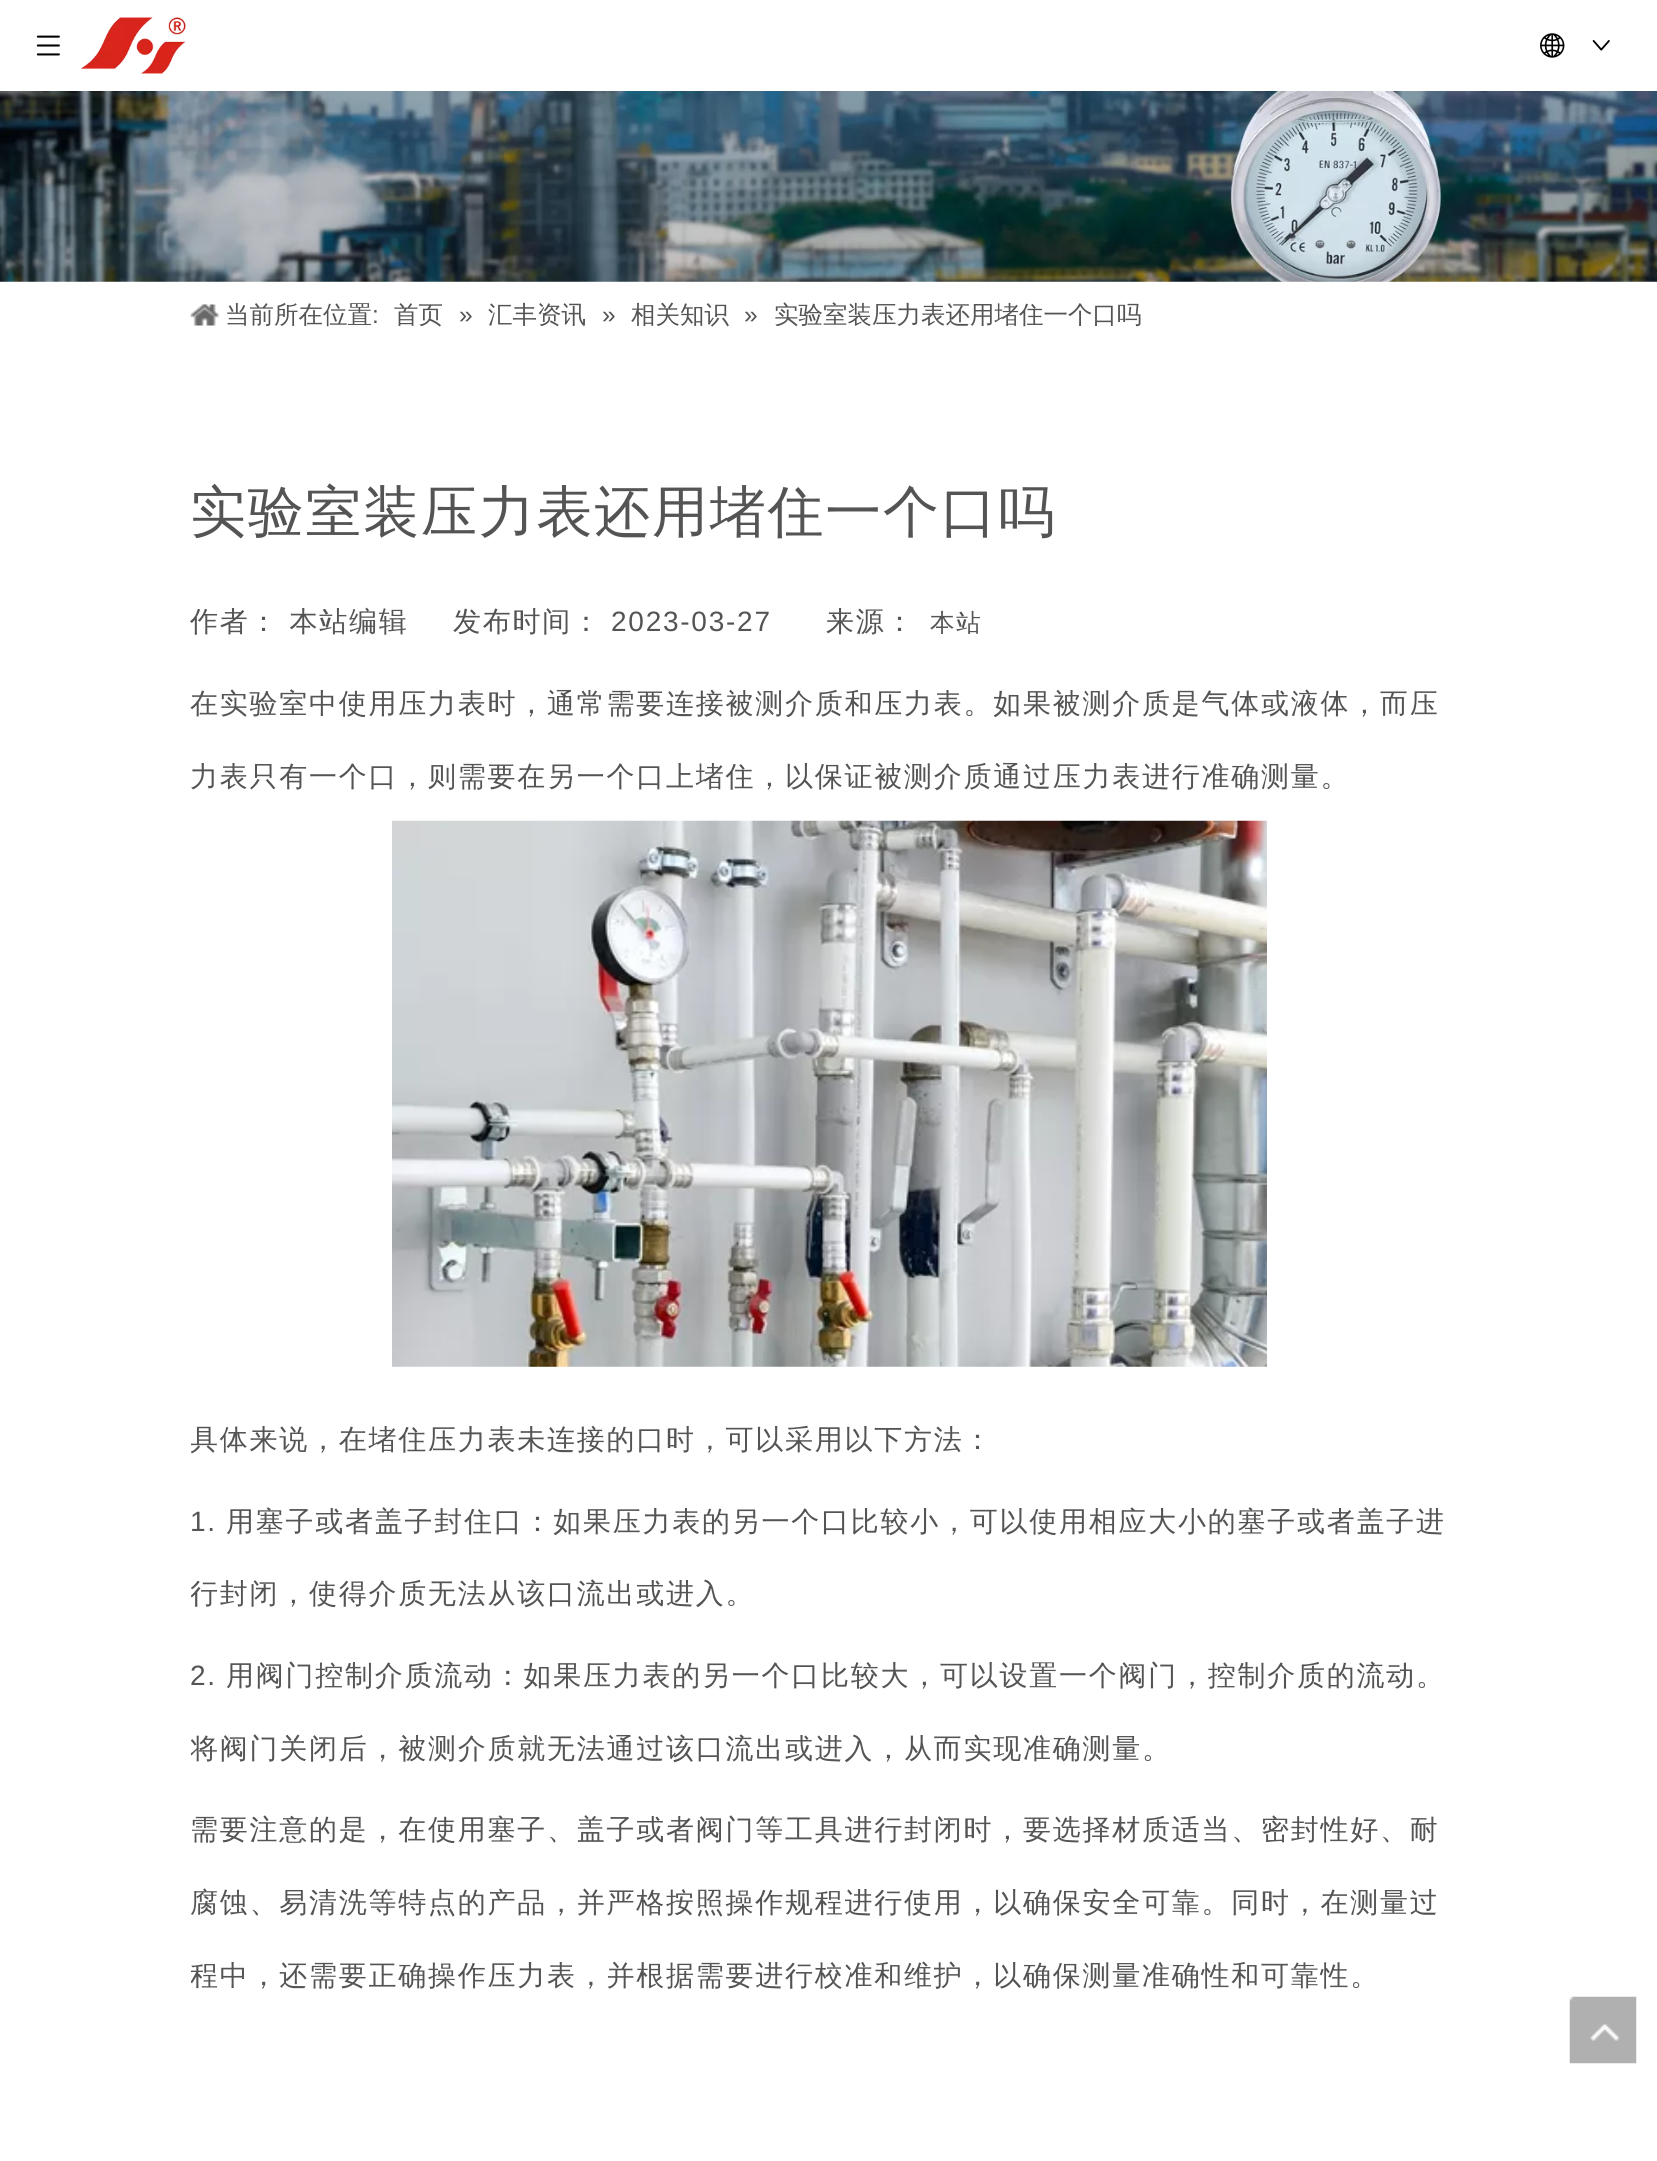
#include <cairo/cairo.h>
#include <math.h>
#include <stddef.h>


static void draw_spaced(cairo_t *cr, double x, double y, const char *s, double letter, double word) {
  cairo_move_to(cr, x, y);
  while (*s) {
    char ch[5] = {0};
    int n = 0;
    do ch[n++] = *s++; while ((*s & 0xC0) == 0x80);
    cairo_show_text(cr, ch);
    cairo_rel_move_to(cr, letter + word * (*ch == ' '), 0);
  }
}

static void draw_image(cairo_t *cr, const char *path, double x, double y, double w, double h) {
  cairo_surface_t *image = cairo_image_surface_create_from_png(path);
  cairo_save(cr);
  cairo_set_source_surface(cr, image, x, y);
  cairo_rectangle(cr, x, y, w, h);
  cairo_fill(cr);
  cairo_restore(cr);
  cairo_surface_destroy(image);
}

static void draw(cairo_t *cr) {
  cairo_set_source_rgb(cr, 1, 1, 1);
  cairo_paint(cr);
  draw_image(cr, "images/1.png", 36, 35, 24, 21);
  draw_image(cr, "images/2.png", 80, 17, 106, 57);
  draw_image(cr, "images/3.png", 1540, 33, 25, 25);
  draw_image(cr, "images/4.png", 1592, 40, 18, 11);
  draw_image(cr, "images/5.png", 0, 91, 1657, 191);
  draw_image(cr, "images/6.png", 190, 304, 29, 22);
  draw_image(cr, "images/7.png", 392, 820, 875, 547);
  draw_image(cr, "images/8.png", 1569, 1996, 68, 68);
  cairo_select_font_face(cr, "WenQuanYi Zen Hei Medium", CAIRO_FONT_SLANT_NORMAL, CAIRO_FONT_WEIGHT_NORMAL);
  cairo_set_font_size(cr, 24.5);
  cairo_set_source_rgb(cr, 84 / 255.0, 84 / 255.0, 84 / 255.0);
  cairo_move_to(cr, 225, 323);
  cairo_show_text(cr, "当前所在位置");
  cairo_select_font_face(cr, "Liberation Sans", CAIRO_FONT_SLANT_NORMAL, CAIRO_FONT_WEIGHT_NORMAL);
  cairo_move_to(cr, 372, 323);
  cairo_show_text(cr, ":");
  cairo_select_font_face(cr, "WenQuanYi Zen Hei Medium", CAIRO_FONT_SLANT_NORMAL, CAIRO_FONT_WEIGHT_NORMAL);
  cairo_move_to(cr, 394, 323);
  cairo_show_text(cr, "首页");
  cairo_select_font_face(cr, "Liberation Sans", CAIRO_FONT_SLANT_NORMAL, CAIRO_FONT_WEIGHT_NORMAL);
  cairo_move_to(cr, 459, 323);
  cairo_show_text(cr, "»");
  cairo_select_font_face(cr, "WenQuanYi Zen Hei Medium", CAIRO_FONT_SLANT_NORMAL, CAIRO_FONT_WEIGHT_NORMAL);
  cairo_move_to(cr, 488, 323);
  cairo_show_text(cr, "汇丰资讯");
  cairo_select_font_face(cr, "Liberation Sans", CAIRO_FONT_SLANT_NORMAL, CAIRO_FONT_WEIGHT_NORMAL);
  cairo_move_to(cr, 602, 323);
  cairo_show_text(cr, "»");
  cairo_select_font_face(cr, "WenQuanYi Zen Hei Medium", CAIRO_FONT_SLANT_NORMAL, CAIRO_FONT_WEIGHT_NORMAL);
  cairo_move_to(cr, 631, 323);
  cairo_show_text(cr, "相关知识");
  cairo_select_font_face(cr, "Liberation Sans", CAIRO_FONT_SLANT_NORMAL, CAIRO_FONT_WEIGHT_NORMAL);
  cairo_move_to(cr, 744, 323);
  cairo_show_text(cr, "»");
  cairo_select_font_face(cr, "WenQuanYi Zen Hei Medium", CAIRO_FONT_SLANT_NORMAL, CAIRO_FONT_WEIGHT_NORMAL);
  cairo_move_to(cr, 774, 323);
  cairo_show_text(cr, "实验室装压力表还用堵住一个口吗");
  cairo_set_font_size(cr, 56);
  draw_spaced(cr, 190, 531, "实验室装压力表还用堵住一个口吗", 1.75, 0);
  cairo_set_font_size(cr, 28);
  draw_spaced(cr, 190, 631, "作者： 本站编辑", 1.75, 0);
  draw_spaced(cr, 453, 631, "发布时间：", 1.75, 0);
  cairo_select_font_face(cr, "Liberation Sans", CAIRO_FONT_SLANT_NORMAL, CAIRO_FONT_WEIGHT_NORMAL);
  draw_spaced(cr, 611, 631, "2023-03-27", 1.75, 0);
  cairo_select_font_face(cr, "WenQuanYi Zen Hei Medium", CAIRO_FONT_SLANT_NORMAL, CAIRO_FONT_WEIGHT_NORMAL);
  draw_spaced(cr, 826, 631, "来源：", 1.75, 0);
  cairo_set_font_size(cr, 24.5);
  draw_spaced(cr, 930, 631, "本站", 1.75, 0);
  cairo_set_font_size(cr, 28);
  draw_spaced(cr, 190, 713, "在实验室中使用压力表时，通常需要连接被测介质和压力表。如果被测介质是气体或液体，而压", 1.75, 0);
  draw_spaced(cr, 190, 786, "力表只有一个口，则需要在另一个口上堵住，以保证被测介质通过压力表进行准确测量。", 1.75, 0);
  cairo_save(cr);
  cairo_rectangle(cr, 191, 441, 1277, 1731);
  cairo_clip(cr);
  draw_spaced(cr, 190, 1449, "具体来说，在堵住压力表未连接的口时，可以采用以下方法：", 1.75, 0);
  cairo_restore(cr);
  cairo_select_font_face(cr, "Liberation Sans", CAIRO_FONT_SLANT_NORMAL, CAIRO_FONT_WEIGHT_NORMAL);
  draw_spaced(cr, 190, 1531, "1.", 1.75, 0);
  cairo_select_font_face(cr, "WenQuanYi Zen Hei Medium", CAIRO_FONT_SLANT_NORMAL, CAIRO_FONT_WEIGHT_NORMAL);
  draw_spaced(cr, 226, 1531, "用塞子或者盖子封住口：如果压力表的另一个口比较小，可以使用相应大小的塞子或者盖子进", 1.75, 0);
  cairo_save(cr);
  cairo_rectangle(cr, 191, 441, 1277, 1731);
  cairo_clip(cr);
  draw_spaced(cr, 190, 1603, "行封闭，使得介质无法从该口流出或进入。", 1.75, 0);
  cairo_restore(cr);
  cairo_select_font_face(cr, "Liberation Sans", CAIRO_FONT_SLANT_NORMAL, CAIRO_FONT_WEIGHT_NORMAL);
  draw_spaced(cr, 190, 1685, "2.", 1.75, 0);
  cairo_select_font_face(cr, "WenQuanYi Zen Hei Medium", CAIRO_FONT_SLANT_NORMAL, CAIRO_FONT_WEIGHT_NORMAL);
  draw_spaced(cr, 226, 1685, "用阀门控制介质流动：如果压力表的另一个口比较大，可以设置一个阀门，控制介质的流动。", 1.75, 0);
  cairo_save(cr);
  cairo_rectangle(cr, 191, 441, 1277, 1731);
  cairo_clip(cr);
  draw_spaced(cr, 190, 1758, "将阀门关闭后，被测介质就无法通过该口流出或进入，从而实现准确测量。", 1.75, 0);
  cairo_restore(cr);
  draw_spaced(cr, 190, 1839, "需要注意的是，在使用塞子、盖子或者阀门等工具进行封闭时，要选择材质适当、密封性好、耐", 1.75, 0);
  draw_spaced(cr, 190, 1912, "腐蚀、易清洗等特点的产品，并严格按照操作规程进行使用，以确保安全可靠。同时，在测量过", 1.75, 0);
  cairo_save(cr);
  cairo_rectangle(cr, 191, 441, 1277, 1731);
  cairo_clip(cr);
  draw_spaced(cr, 190, 1985, "程中，还需要正确操作压力表，并根据需要进行校准和维护，以确保测量准确性和可靠性。", 1.75, 0);
  cairo_restore(cr);
}

int main(void) {
  cairo_surface_t *surface = cairo_image_surface_create(CAIRO_FORMAT_RGB24, 1657, 2161);
  cairo_t *cr = cairo_create(surface);
  cairo_font_options_t *options = cairo_font_options_create();
  cairo_font_options_set_hint_metrics(options, CAIRO_HINT_METRICS_OFF);
  cairo_font_options_set_hint_style(options, CAIRO_HINT_STYLE_NONE);
  cairo_set_font_options(cr, options);
  cairo_set_miter_limit(cr, 4);
  draw(cr);
  cairo_surface_write_to_png(surface, "out.png");
  cairo_font_options_destroy(options);
  cairo_destroy(cr);
  cairo_surface_destroy(surface);
  return 0;
}
